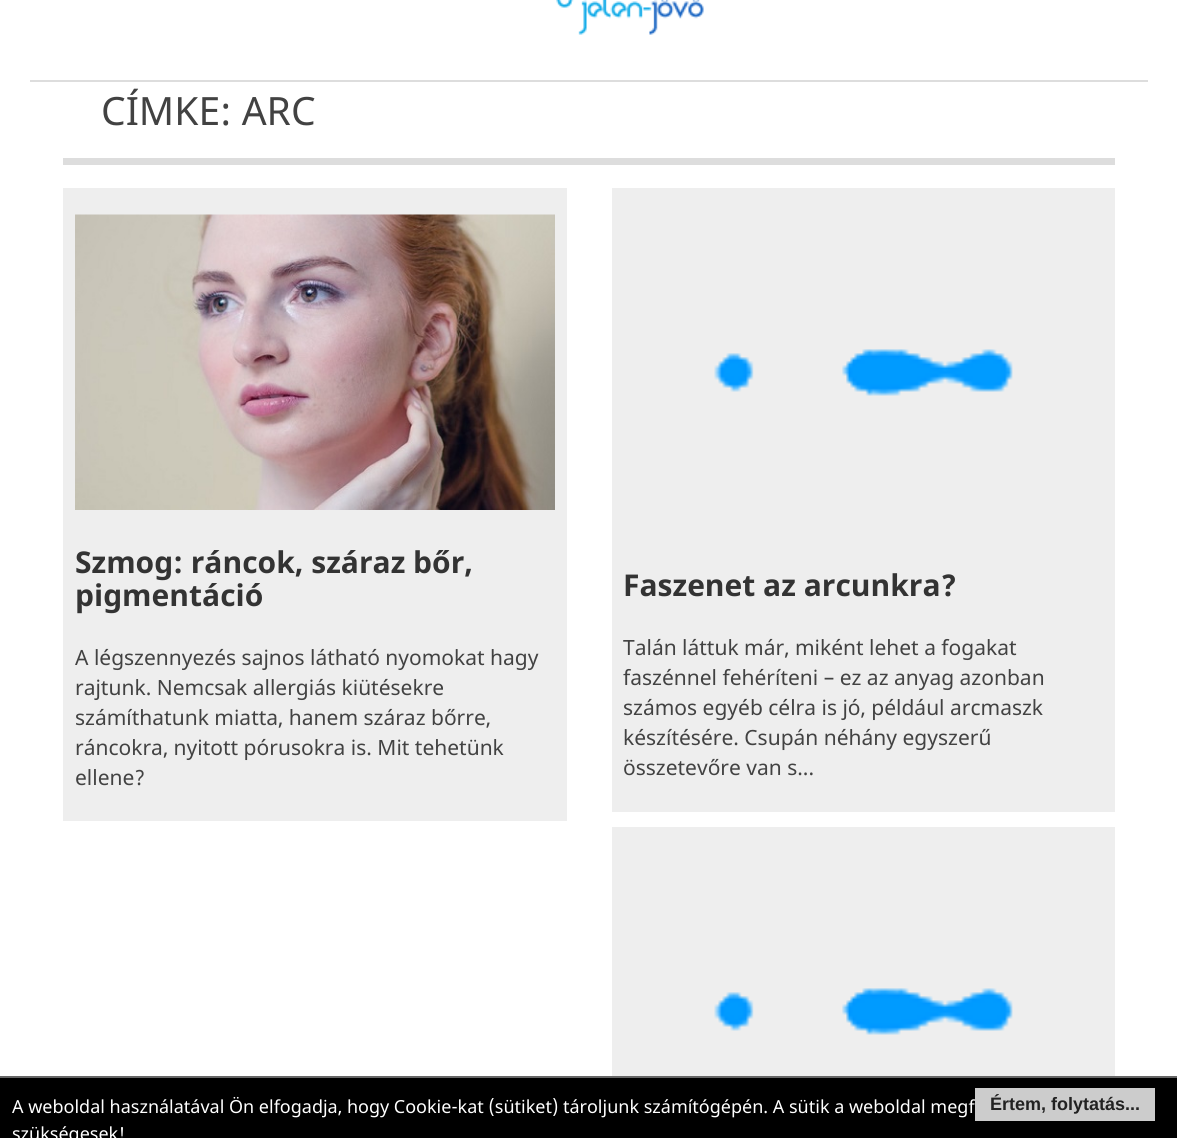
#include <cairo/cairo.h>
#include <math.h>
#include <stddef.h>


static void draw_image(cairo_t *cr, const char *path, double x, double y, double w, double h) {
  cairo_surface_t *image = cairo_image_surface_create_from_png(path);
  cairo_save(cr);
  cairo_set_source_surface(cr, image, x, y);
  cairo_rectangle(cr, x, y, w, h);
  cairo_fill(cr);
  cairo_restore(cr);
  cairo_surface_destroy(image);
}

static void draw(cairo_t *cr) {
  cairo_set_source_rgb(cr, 1, 1, 1);
  cairo_paint(cr);
  cairo_set_source_rgb(cr, 221 / 255.0, 221 / 255.0, 221 / 255.0);
  cairo_rectangle(cr, 30, 80, 1118, 2);
  cairo_fill(cr);
  draw_image(cr, "images/1.png", 556, 0, 148, 35);
  cairo_rectangle(cr, 63, 158, 1052, 7);
  cairo_fill(cr);
  cairo_set_source_rgb(cr, 238 / 255.0, 238 / 255.0, 238 / 255.0);
  cairo_rectangle(cr, 63, 188, 504, 633);
  cairo_fill(cr);
  draw_image(cr, "images/2.png", 75, 214, 480, 296);
  cairo_rectangle(cr, 612, 188, 503, 624);
  cairo_fill(cr);
  draw_image(cr, "images/3.png", 714, 349, 299, 47);
  cairo_rectangle(cr, 612, 827, 503, 249);
  cairo_fill(cr);
  draw_image(cr, "images/3.png", 714, 988, 299, 47);
  cairo_set_source_rgb(cr, 0, 0, 0);
  cairo_rectangle(cr, 0, 1078, 1177, 60);
  cairo_fill(cr);
  cairo_set_source_rgb(cr, 102 / 255.0, 102 / 255.0, 102 / 255.0);
  cairo_rectangle(cr, 0, 1076, 1177, 2);
  cairo_fill(cr);
  cairo_select_font_face(cr, "Noto Sans", CAIRO_FONT_SLANT_NORMAL, CAIRO_FONT_WEIGHT_NORMAL);
  cairo_set_font_size(cr, 39);
  cairo_set_source_rgb(cr, 66 / 255.0, 66 / 255.0, 66 / 255.0);
  cairo_move_to(cr, 101, 125);
  cairo_show_text(cr, "CÍMKE: ARC");
  cairo_select_font_face(cr, "Noto Sans", CAIRO_FONT_SLANT_NORMAL, CAIRO_FONT_WEIGHT_BOLD);
  cairo_set_font_size(cr, 30);
  cairo_set_source_rgb(cr, 51 / 255.0, 51 / 255.0, 51 / 255.0);
  cairo_move_to(cr, 75, 573);
  cairo_show_text(cr, "Szmog: ráncok, száraz bőr,");
  cairo_move_to(cr, 75, 606);
  cairo_show_text(cr, "pigmentáció");
  cairo_select_font_face(cr, "Noto Sans", CAIRO_FONT_SLANT_NORMAL, CAIRO_FONT_WEIGHT_NORMAL);
  cairo_set_font_size(cr, 21);
  cairo_set_source_rgb(cr, 66 / 255.0, 66 / 255.0, 66 / 255.0);
  cairo_move_to(cr, 75, 665);
  cairo_show_text(cr, "A légszennyezés sajnos látható nyomokat hagy");
  cairo_move_to(cr, 75, 695);
  cairo_show_text(cr, "rajtunk. Nemcsak allergiás kiütésekre");
  cairo_move_to(cr, 75, 725);
  cairo_show_text(cr, "számíthatunk miatta, hanem száraz bőrre,");
  cairo_move_to(cr, 75, 755);
  cairo_show_text(cr, "ráncokra, nyitott pórusokra is. Mit tehetünk");
  cairo_move_to(cr, 75, 785);
  cairo_show_text(cr, "ellene?");
  cairo_select_font_face(cr, "Noto Sans", CAIRO_FONT_SLANT_NORMAL, CAIRO_FONT_WEIGHT_BOLD);
  cairo_set_font_size(cr, 30);
  cairo_set_source_rgb(cr, 51 / 255.0, 51 / 255.0, 51 / 255.0);
  cairo_move_to(cr, 623, 596);
  cairo_show_text(cr, "Faszenet az arcunkra?");
  cairo_select_font_face(cr, "Noto Sans", CAIRO_FONT_SLANT_NORMAL, CAIRO_FONT_WEIGHT_NORMAL);
  cairo_set_font_size(cr, 21);
  cairo_set_source_rgb(cr, 66 / 255.0, 66 / 255.0, 66 / 255.0);
  cairo_move_to(cr, 623, 655);
  cairo_show_text(cr, "Talán láttuk már, miként lehet a fogakat");
  cairo_move_to(cr, 623, 685);
  cairo_show_text(cr, "faszénnel fehéríteni – ez az anyag azonban");
  cairo_move_to(cr, 623, 715);
  cairo_show_text(cr, "számos egyéb célra is jó, például arcmaszk");
  cairo_move_to(cr, 623, 745);
  cairo_show_text(cr, "készítésére. Csupán néhány egyszerű");
  cairo_move_to(cr, 623, 775);
  cairo_show_text(cr, "összetevőre van s...");
  cairo_set_font_size(cr, 18);
  cairo_set_source_rgb(cr, 1, 1, 1);
  cairo_move_to(cr, 12, 1113);
  cairo_show_text(cr, "A weboldal használatával Ön elfogadja, hogy Cookie-kat (sütiket) tároljunk számítógépén. A sütik a weboldal megf");
  cairo_move_to(cr, 12, 1140);
  cairo_show_text(cr, "szükségesek!");
  cairo_set_source_rgba(cr, 1, 1, 1, 0.8);
  cairo_rectangle(cr, 975, 1088, 180, 33);
  cairo_fill(cr);
  cairo_select_font_face(cr, "Liberation Sans", CAIRO_FONT_SLANT_NORMAL, CAIRO_FONT_WEIGHT_BOLD);
  cairo_set_source_rgb(cr, 34 / 255.0, 34 / 255.0, 34 / 255.0);
  cairo_move_to(cr, 990, 1110);
  cairo_show_text(cr, "Értem, folytatás...");
}

int main(void) {
  cairo_surface_t *surface = cairo_image_surface_create(CAIRO_FORMAT_RGB24, 1177, 1138);
  cairo_t *cr = cairo_create(surface);
  cairo_font_options_t *options = cairo_font_options_create();
  cairo_font_options_set_hint_metrics(options, CAIRO_HINT_METRICS_OFF);
  cairo_font_options_set_hint_style(options, CAIRO_HINT_STYLE_NONE);
  cairo_set_font_options(cr, options);
  cairo_set_miter_limit(cr, 4);
  draw(cr);
  cairo_surface_write_to_png(surface, "out.png");
  cairo_font_options_destroy(options);
  cairo_destroy(cr);
  cairo_surface_destroy(surface);
  return 0;
}
